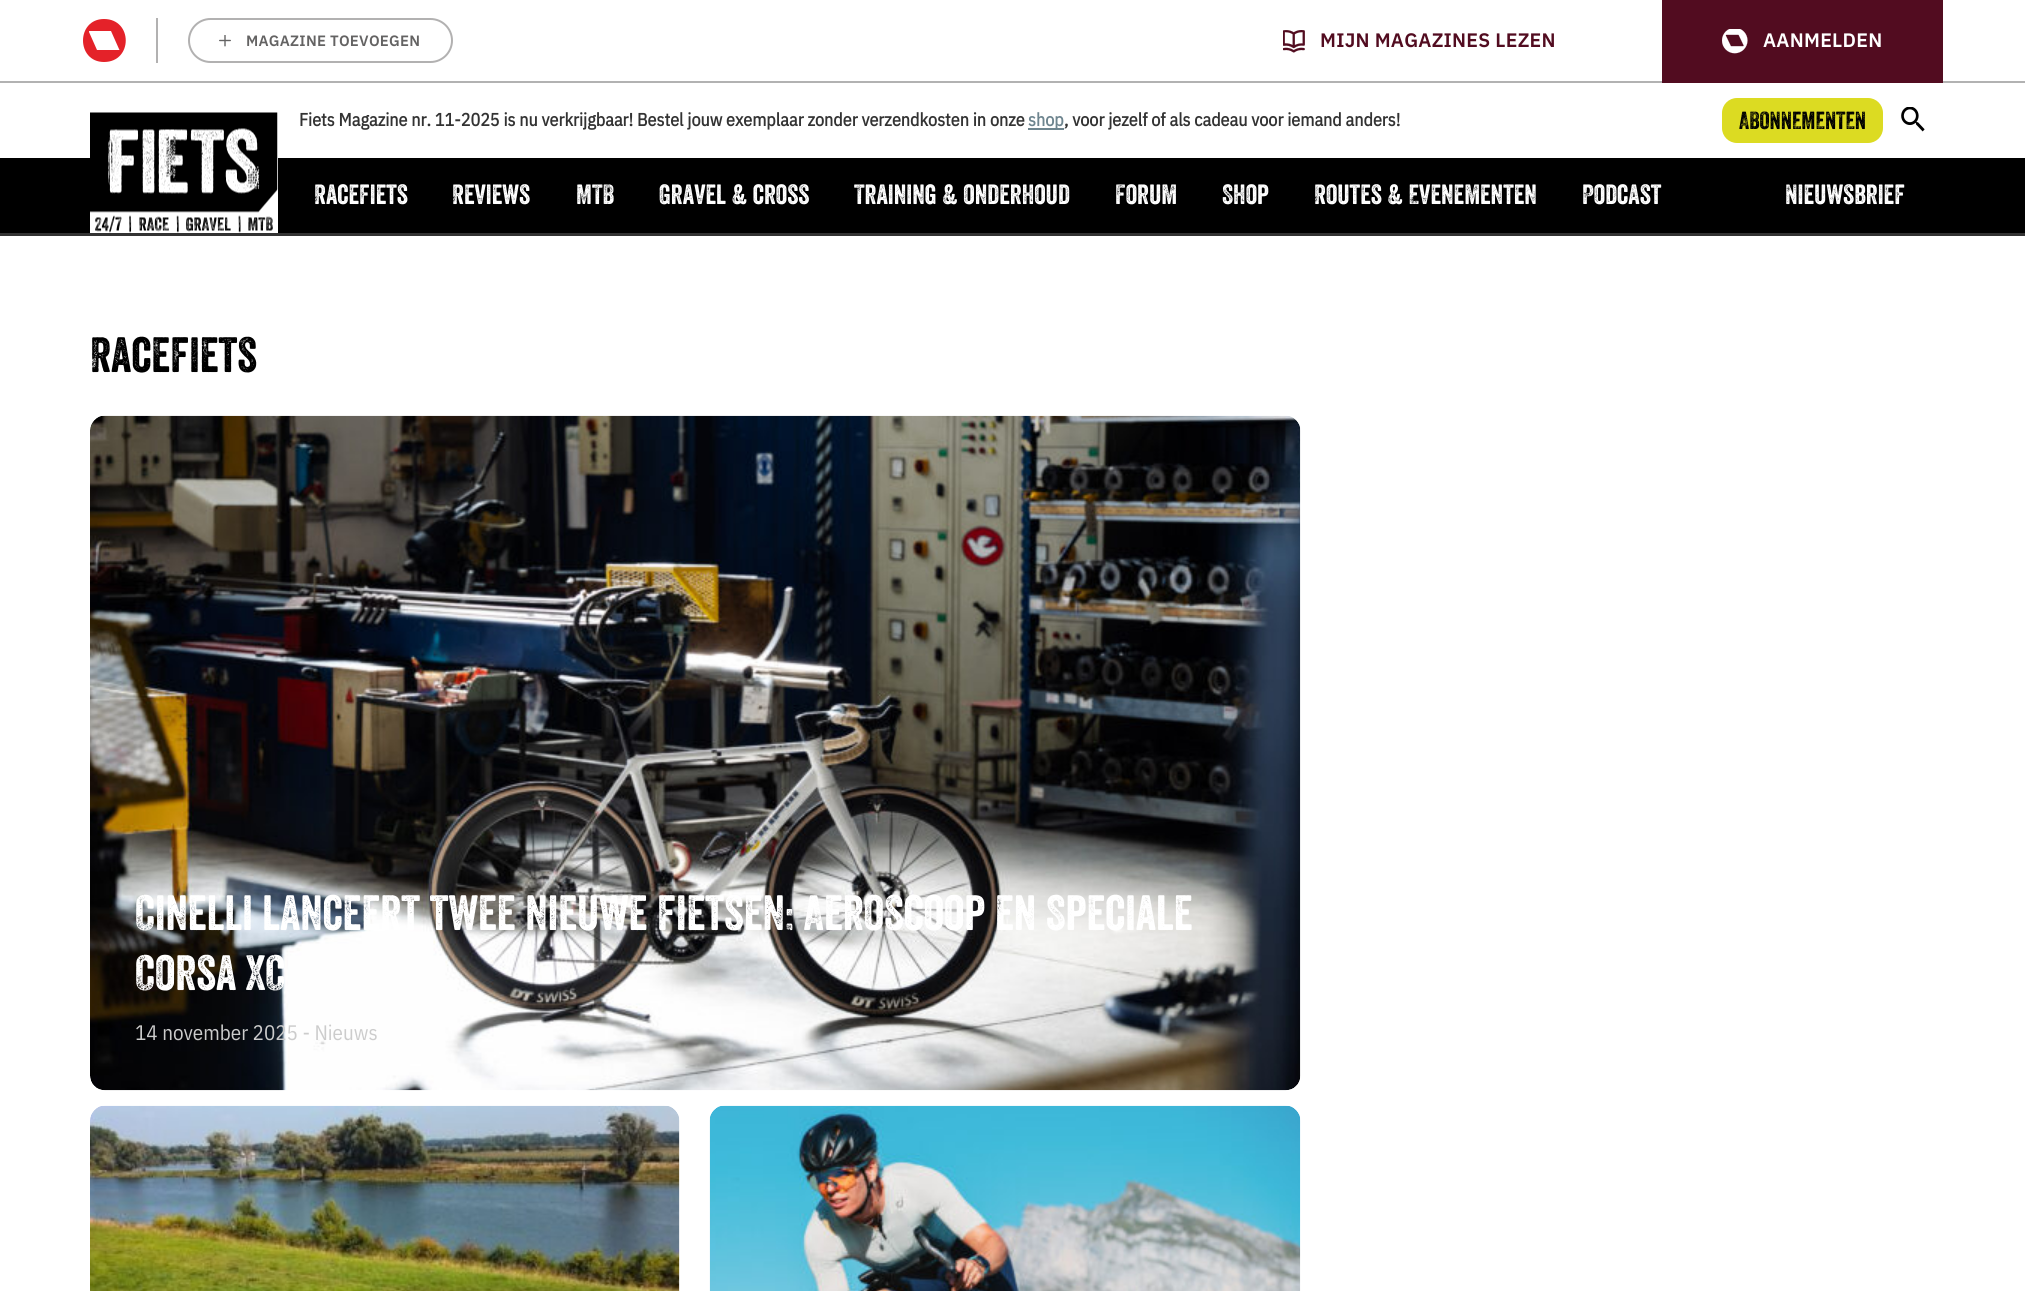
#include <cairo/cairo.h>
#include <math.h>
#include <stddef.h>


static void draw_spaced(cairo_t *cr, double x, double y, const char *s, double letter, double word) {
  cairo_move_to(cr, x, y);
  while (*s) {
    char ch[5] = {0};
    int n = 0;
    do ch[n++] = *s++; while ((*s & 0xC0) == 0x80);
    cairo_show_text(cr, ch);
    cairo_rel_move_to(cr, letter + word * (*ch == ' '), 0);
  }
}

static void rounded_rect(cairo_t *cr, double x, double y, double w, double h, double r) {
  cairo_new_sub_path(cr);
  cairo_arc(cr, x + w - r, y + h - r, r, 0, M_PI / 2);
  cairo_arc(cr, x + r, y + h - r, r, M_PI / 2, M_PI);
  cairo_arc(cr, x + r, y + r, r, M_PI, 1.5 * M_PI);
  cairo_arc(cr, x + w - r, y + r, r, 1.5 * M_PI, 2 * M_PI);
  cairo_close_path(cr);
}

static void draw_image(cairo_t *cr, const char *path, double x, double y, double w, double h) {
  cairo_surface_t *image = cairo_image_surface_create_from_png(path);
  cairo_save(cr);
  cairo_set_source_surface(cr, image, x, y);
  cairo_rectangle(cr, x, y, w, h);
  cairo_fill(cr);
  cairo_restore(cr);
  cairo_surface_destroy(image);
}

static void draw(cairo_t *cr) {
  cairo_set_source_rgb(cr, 1, 1, 1);
  cairo_paint(cr);
  cairo_set_source_rgb(cr, 178 / 255.0, 178 / 255.0, 178 / 255.0);
  cairo_rectangle(cr, 0, 81, 2025, 2);
  cairo_fill(cr);
  cairo_set_source_rgb(cr, 178 / 255.0, 177 / 255.0, 177 / 255.0);
  cairo_rectangle(cr, 156, 18, 2, 45);
  cairo_fill(cr);
  cairo_set_source_rgb(cr, 228 / 255.0, 34 / 255.0, 41 / 255.0);
  cairo_set_fill_rule(cr, CAIRO_FILL_RULE_EVEN_ODD);
  cairo_new_path(cr);
  cairo_move_to(cr, 119, 50);
  cairo_line_to(cr, 98, 50);
  cairo_line_to(cr, 97, 50);
  cairo_line_to(cr, 89, 32);
  cairo_curve_to(cr, 89, 31, 89, 31, 90, 31);
  cairo_line_to(cr, 110, 31);
  cairo_line_to(cr, 111, 31);
  cairo_line_to(cr, 119, 49);
  cairo_curve_to(cr, 120, 49, 119, 50, 119, 50);
  cairo_close_path(cr);
  cairo_move_to(cr, 104, 19);
  cairo_curve_to(cr, 76, 19, 76, 62, 104, 62);
  cairo_curve_to(cr, 133, 62, 133, 19, 104, 19);
  cairo_close_path(cr);
  cairo_fill(cr);
  rounded_rect(cr, 189, 19, 263, 43, 21.5);
  cairo_set_source_rgb(cr, 178 / 255.0, 177 / 255.0, 177 / 255.0);
  cairo_stroke(cr);
  draw_image(cr, "images/1.png", 219, 35, 12, 12);
  draw_image(cr, "images/2.png", 1283, 30, 22, 23);
  cairo_set_source_rgb(cr, 82 / 255.0, 12 / 255.0, 32 / 255.0);
  cairo_rectangle(cr, 1662, 0, 281, 83);
  cairo_fill(cr);
  draw_image(cr, "images/3.png", 1722, 29, 26, 25);
  cairo_set_source_rgb(cr, 0, 0, 0);
  cairo_rectangle(cr, 0, 158, 2025, 75);
  cairo_fill(cr);
  cairo_set_source_rgb(cr, 1, 1, 1);
  cairo_rectangle(cr, 90, 158, 188, 75);
  cairo_fill(cr);
  draw_image(cr, "images/4.png", 90, 112, 188, 121);
  cairo_set_source_rgb(cr, 110 / 255.0, 133 / 255.0, 143 / 255.0);
  cairo_rectangle(cr, 1028, 128, 36, 2);
  cairo_fill(cr);
  cairo_set_source_rgb(cr, 220 / 255.0, 219 / 255.0, 34 / 255.0);
  rounded_rect(cr, 1722, 98, 161, 45, 15);
  cairo_fill(cr);
  draw_image(cr, "images/5.png", 1901, 107, 24, 25);
  cairo_set_source_rgb(cr, 51 / 255.0, 51 / 255.0, 51 / 255.0);
  cairo_rectangle(cr, 0, 233, 2025, 3);
  cairo_fill(cr);
  draw_image(cr, "images/6.png", 90, 415, 1211, 676);
  draw_image(cr, "images/7.png", 90, 1105, 590, 186);
  draw_image(cr, "images/8.png", 709, 1105, 592, 186);
  cairo_select_font_face(cr, "IBM Plex Sans SemiBold", CAIRO_FONT_SLANT_NORMAL, CAIRO_FONT_WEIGHT_NORMAL);
  cairo_set_font_size(cr, 15);
  cairo_set_source_rgb(cr, 100 / 255.0, 99 / 255.0, 99 / 255.0);
  draw_spaced(cr, 246, 46, "MAGAZINE TOEVOEGEN", 0.25, 0);
  cairo_set_font_size(cr, 19.5);
  cairo_set_source_rgb(cr, 82 / 255.0, 12 / 255.0, 32 / 255.0);
  draw_spaced(cr, 1320, 47, "MIJN MAGAZINES LEZEN", 0.25, 0);
  cairo_set_source_rgb(cr, 1, 1, 1);
  draw_spaced(cr, 1763, 47, "AANMELDEN", 0.25, 0);
  cairo_select_font_face(cr, "IBM Plex Sans Condensed", CAIRO_FONT_SLANT_NORMAL, CAIRO_FONT_WEIGHT_BOLD);
  cairo_set_font_size(cr, 18);
  cairo_set_source_rgb(cr, 51 / 255.0, 51 / 255.0, 51 / 255.0);
  cairo_move_to(cr, 299, 126);
  cairo_show_text(cr, "Fiets Magazine nr. 11-2025 is nu verkrijgbaar! Bestel jouw exemplaar zonder verzendkosten in onze");
  cairo_set_source_rgb(cr, 110 / 255.0, 133 / 255.0, 143 / 255.0);
  cairo_move_to(cr, 1028, 126);
  cairo_show_text(cr, "shop");
  cairo_set_source_rgb(cr, 51 / 255.0, 51 / 255.0, 51 / 255.0);
  cairo_move_to(cr, 1064, 126);
  cairo_show_text(cr, ", voor jezelf of als cadeau voor iemand anders!");
  cairo_select_font_face(cr, "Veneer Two", CAIRO_FONT_SLANT_NORMAL, CAIRO_FONT_WEIGHT_NORMAL);
  cairo_set_font_size(cr, 24);
  cairo_set_source_rgb(cr, 0, 0, 0);
  cairo_move_to(cr, 1739, 129);
  cairo_show_text(cr, "ABONNEMENTEN");
  cairo_set_font_size(cr, 27);
  cairo_set_source_rgb(cr, 1, 1, 1);
  cairo_move_to(cr, 314, 204);
  cairo_show_text(cr, "Racefiets");
  cairo_move_to(cr, 452, 204);
  cairo_show_text(cr, "Reviews");
  cairo_move_to(cr, 576, 204);
  cairo_show_text(cr, "MTB");
  cairo_move_to(cr, 659, 204);
  cairo_show_text(cr, "Gravel & cross");
  cairo_move_to(cr, 854, 204);
  cairo_show_text(cr, "Training & onderhoud");
  cairo_move_to(cr, 1115, 204);
  cairo_show_text(cr, "Forum");
  cairo_move_to(cr, 1222, 204);
  cairo_show_text(cr, "Shop");
  cairo_move_to(cr, 1314, 204);
  cairo_show_text(cr, "Routes & Evenementen");
  cairo_move_to(cr, 1582, 204);
  cairo_show_text(cr, "Podcast");
  cairo_move_to(cr, 1785, 204);
  cairo_show_text(cr, "Nieuwsbrief");
  cairo_set_font_size(cr, 48);
  cairo_set_source_rgb(cr, 0, 0, 0);
  cairo_move_to(cr, 90, 372);
  cairo_show_text(cr, "Racefiets");
  cairo_set_source_rgb(cr, 1, 1, 1);
  cairo_move_to(cr, 135, 930);
  cairo_show_text(cr, "Cinelli lanceert twee nieuwe fietsen: Aeroscoop en Speciale");
  cairo_move_to(cr, 135, 990);
  cairo_show_text(cr, "Corsa XC");
  cairo_select_font_face(cr, "IBM Plex Sans Condensed", CAIRO_FONT_SLANT_NORMAL, CAIRO_FONT_WEIGHT_NORMAL);
  cairo_set_font_size(cr, 21);
  cairo_set_source_rgb(cr, 204 / 255.0, 204 / 255.0, 204 / 255.0);
  cairo_move_to(cr, 135, 1040);
  cairo_show_text(cr, "14 november 2025 - Nieuws");
}

int main(void) {
  cairo_surface_t *surface = cairo_image_surface_create(CAIRO_FORMAT_RGB24, 2025, 1291);
  cairo_t *cr = cairo_create(surface);
  cairo_font_options_t *options = cairo_font_options_create();
  cairo_font_options_set_hint_metrics(options, CAIRO_HINT_METRICS_OFF);
  cairo_font_options_set_hint_style(options, CAIRO_HINT_STYLE_NONE);
  cairo_set_font_options(cr, options);
  cairo_set_miter_limit(cr, 4);
  draw(cr);
  cairo_surface_write_to_png(surface, "out.png");
  cairo_font_options_destroy(options);
  cairo_destroy(cr);
  cairo_surface_destroy(surface);
  return 0;
}
